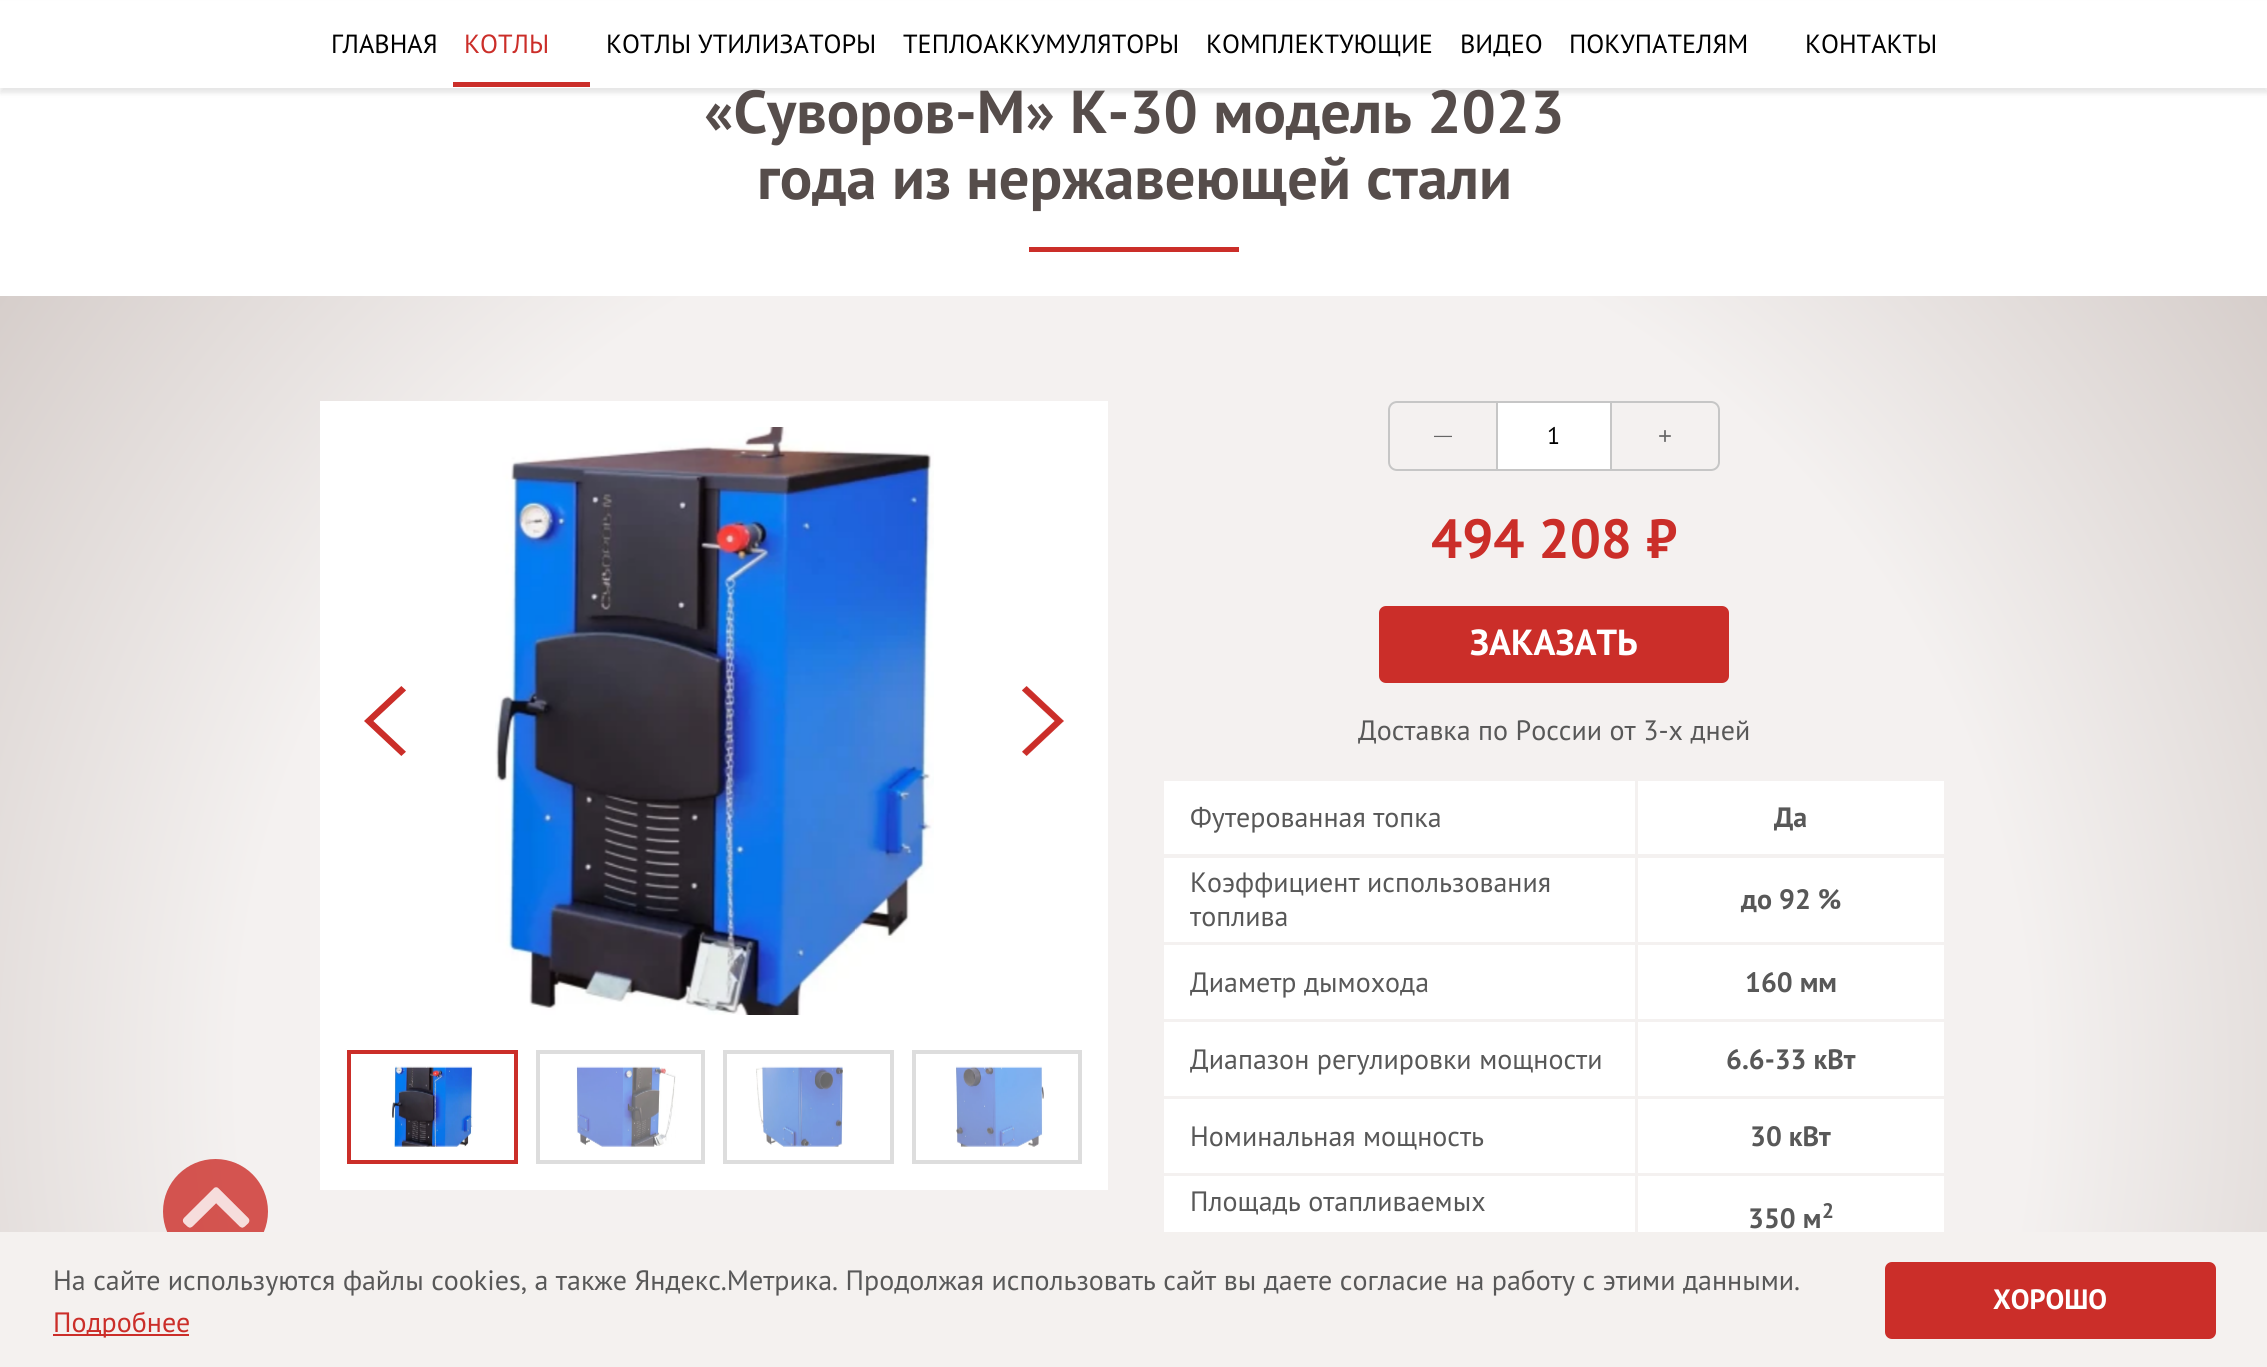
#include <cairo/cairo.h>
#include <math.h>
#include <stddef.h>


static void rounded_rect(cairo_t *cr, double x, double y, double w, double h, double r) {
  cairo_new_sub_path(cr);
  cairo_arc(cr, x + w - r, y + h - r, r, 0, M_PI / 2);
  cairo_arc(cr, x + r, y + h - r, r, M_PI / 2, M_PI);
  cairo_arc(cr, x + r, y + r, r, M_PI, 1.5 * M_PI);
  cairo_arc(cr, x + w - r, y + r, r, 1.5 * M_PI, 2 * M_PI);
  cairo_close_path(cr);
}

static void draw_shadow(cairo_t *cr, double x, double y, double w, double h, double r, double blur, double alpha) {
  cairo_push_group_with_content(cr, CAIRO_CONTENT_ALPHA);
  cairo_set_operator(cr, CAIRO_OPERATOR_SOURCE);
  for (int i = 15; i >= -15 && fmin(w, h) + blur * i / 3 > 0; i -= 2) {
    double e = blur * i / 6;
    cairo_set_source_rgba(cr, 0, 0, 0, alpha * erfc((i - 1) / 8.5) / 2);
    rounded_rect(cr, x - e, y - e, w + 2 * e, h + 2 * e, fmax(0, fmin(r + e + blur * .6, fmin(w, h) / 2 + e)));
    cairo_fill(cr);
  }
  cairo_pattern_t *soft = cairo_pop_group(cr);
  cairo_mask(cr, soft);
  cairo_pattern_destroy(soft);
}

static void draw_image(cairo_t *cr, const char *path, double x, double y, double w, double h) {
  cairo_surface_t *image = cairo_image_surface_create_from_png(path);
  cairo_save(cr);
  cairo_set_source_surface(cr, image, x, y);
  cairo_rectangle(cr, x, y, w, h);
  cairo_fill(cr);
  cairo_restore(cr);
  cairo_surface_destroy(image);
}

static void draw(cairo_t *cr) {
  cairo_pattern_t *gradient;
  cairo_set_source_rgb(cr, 1, 1, 1);
  cairo_paint(cr);
  gradient = cairo_pattern_create_radial(1134, 1075, 0, 1134, 1075, 1376);
  cairo_pattern_add_color_stop_rgba(gradient, 0.65, 244 / 255.0, 241 / 255.0, 240 / 255.0, 1);
  cairo_pattern_add_color_stop_rgba(gradient, 1, 214 / 255.0, 206 / 255.0, 203 / 255.0, 1);
  cairo_set_source(cr, gradient);
  cairo_pattern_destroy(gradient);
  cairo_rectangle(cr, 0, 296, 2267, 936);
  cairo_fill(cr);
  cairo_set_source_rgba(cr, 203 / 255.0, 46 / 255.0, 41 / 255.0, 0.8);
  cairo_arc(cr, 215.5, 1211.5, 52.5, 0, 2 * M_PI);
  cairo_fill(cr);
  draw_image(cr, "images/1.png", 182, 1187, 68, 41);
  cairo_set_source_rgb(cr, 1 / 255.0, 1 / 255.0, 1 / 255.0);
  draw_shadow(cr, 0, 4, 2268, 89, 0, 2.5, 0.1);
  cairo_set_source_rgb(cr, 1, 1, 1);
  cairo_rectangle(cr, 0, 1, 2267, 87);
  cairo_fill(cr);
  cairo_set_source_rgb(cr, 203 / 255.0, 46 / 255.0, 41 / 255.0);
  cairo_rectangle(cr, 453, 82, 137, 5);
  cairo_fill(cr);
  cairo_rectangle(cr, 1029, 247, 210, 5);
  cairo_fill(cr);
  cairo_set_source_rgb(cr, 1, 1, 1);
  cairo_rectangle(cr, 320, 401, 788, 789);
  cairo_fill(cr);
  draw_image(cr, "images/2.png", 364, 686, 42, 70);
  draw_image(cr, "images/3.png", 495, 427, 439, 588);
  draw_image(cr, "images/4.png", 1022, 686, 42, 70);
  cairo_rectangle(cr, 349, 1052, 167, 110);
  cairo_set_source_rgb(cr, 203 / 255.0, 46 / 255.0, 41 / 255.0);
  cairo_set_line_width(cr, 4);
  cairo_stroke(cr);
  draw_image(cr, "images/5.png", 392, 1066, 81, 81);
  cairo_rectangle(cr, 538, 1052, 165, 110);
  cairo_set_source_rgb(cr, 221 / 255.0, 221 / 255.0, 221 / 255.0);
  cairo_stroke(cr);
  draw_image(cr, "images/6.png", 576, 1066, 100, 81);
  cairo_rectangle(cr, 725, 1052, 167, 110);
  cairo_stroke(cr);
  draw_image(cr, "images/7.png", 756, 1066, 87, 81);
  cairo_rectangle(cr, 914, 1052, 166, 110);
  cairo_stroke(cr);
  draw_image(cr, "images/8.png", 956, 1066, 88, 81);
  cairo_new_path(cr);
  cairo_move_to(cr, 1397, 402);
  cairo_line_to(cr, 1497, 402);
  cairo_line_to(cr, 1497, 470);
  cairo_line_to(cr, 1397, 470);
  cairo_curve_to(cr, 1392.5, 470, 1389, 466.5, 1389, 462);
  cairo_line_to(cr, 1389, 410);
  cairo_curve_to(cr, 1389, 405.5, 1392.5, 402, 1397, 402);
  cairo_close_path(cr);
  cairo_set_source_rgb(cr, 198 / 255.0, 198 / 255.0, 198 / 255.0);
  cairo_set_line_width(cr, 2);
  cairo_stroke(cr);
  cairo_set_source_rgb(cr, 1, 1, 1);
  cairo_rectangle(cr, 1498, 403, 112, 66);
  cairo_fill(cr);
  cairo_set_source_rgb(cr, 198 / 255.0, 198 / 255.0, 198 / 255.0);
  cairo_rectangle(cr, 1498, 401, 112, 2);
  cairo_fill(cr);
  cairo_rectangle(cr, 1498, 469, 112, 2);
  cairo_fill(cr);
  cairo_new_path(cr);
  cairo_move_to(cr, 1611, 402);
  cairo_line_to(cr, 1711, 402);
  cairo_curve_to(cr, 1715.5, 402, 1719, 405.5, 1719, 410);
  cairo_line_to(cr, 1719, 462);
  cairo_curve_to(cr, 1719, 466.5, 1715.5, 470, 1711, 470);
  cairo_line_to(cr, 1611, 470);
  cairo_close_path(cr);
  cairo_stroke(cr);
  cairo_set_source_rgb(cr, 203 / 255.0, 46 / 255.0, 41 / 255.0);
  rounded_rect(cr, 1379, 606, 350, 77, 7);
  cairo_fill(cr);
  cairo_set_source_rgb(cr, 1, 1, 1);
  cairo_rectangle(cr, 1164, 781, 471, 73);
  cairo_fill(cr);
  cairo_rectangle(cr, 1638, 781, 306, 73);
  cairo_fill(cr);
  cairo_rectangle(cr, 1164, 858, 471, 84);
  cairo_fill(cr);
  cairo_rectangle(cr, 1638, 858, 306, 84);
  cairo_fill(cr);
  cairo_rectangle(cr, 1164, 945, 471, 74);
  cairo_fill(cr);
  cairo_rectangle(cr, 1638, 945, 306, 74);
  cairo_fill(cr);
  cairo_rectangle(cr, 1164, 1022, 471, 74);
  cairo_fill(cr);
  cairo_rectangle(cr, 1638, 1022, 306, 74);
  cairo_fill(cr);
  cairo_rectangle(cr, 1164, 1099, 471, 74);
  cairo_fill(cr);
  cairo_rectangle(cr, 1638, 1099, 306, 74);
  cairo_fill(cr);
  cairo_rectangle(cr, 1164, 1176, 471, 56);
  cairo_fill(cr);
  cairo_rectangle(cr, 1638, 1176, 306, 56);
  cairo_fill(cr);
  cairo_set_source_rgb(cr, 244 / 255.0, 241 / 255.0, 239 / 255.0);
  cairo_rectangle(cr, 0, 1232, 2267, 135);
  cairo_fill(cr);
  cairo_set_source_rgb(cr, 203 / 255.0, 46 / 255.0, 41 / 255.0);
  cairo_rectangle(cr, 53, 1334, 136, 2);
  cairo_fill(cr);
  rounded_rect(cr, 1885, 1262, 331, 77, 7);
  cairo_fill(cr);
  cairo_select_font_face(cr, "PT Sans", CAIRO_FONT_SLANT_NORMAL, CAIRO_FONT_WEIGHT_NORMAL);
  cairo_set_font_size(cr, 26.25);
  cairo_set_source_rgb(cr, 0, 0, 0);
  cairo_move_to(cr, 331, 53);
  cairo_show_text(cr, "ГЛАВНАЯ");
  cairo_set_source_rgb(cr, 203 / 255.0, 46 / 255.0, 41 / 255.0);
  cairo_move_to(cr, 464, 53);
  cairo_show_text(cr, "КОТЛЫ");
  cairo_set_source_rgb(cr, 0, 0, 0);
  cairo_move_to(cr, 606, 53);
  cairo_show_text(cr, "КОТЛЫ УТИЛИЗАТОРЫ");
  cairo_move_to(cr, 903, 53);
  cairo_show_text(cr, "ТЕПЛОАККУМУЛЯТОРЫ");
  cairo_move_to(cr, 1206, 53);
  cairo_show_text(cr, "КОМПЛЕКТУЮЩИЕ");
  cairo_move_to(cr, 1460, 53);
  cairo_show_text(cr, "ВИДЕО");
  cairo_move_to(cr, 1569, 53);
  cairo_show_text(cr, "ПОКУПАТЕЛЯМ");
  cairo_move_to(cr, 1805, 53);
  cairo_show_text(cr, "КОНТАКТЫ");
  cairo_select_font_face(cr, "PT Sans", CAIRO_FONT_SLANT_NORMAL, CAIRO_FONT_WEIGHT_BOLD);
  cairo_set_font_size(cr, 60.5);
  cairo_set_source_rgb(cr, 86 / 255.0, 77 / 255.0, 75 / 255.0);
  cairo_move_to(cr, 704, 133);
  cairo_show_text(cr, "«Суворов-М» К-30 модель 2023");
  cairo_move_to(cr, 757, 199);
  cairo_show_text(cr, "года из нержавеющей стали");
  cairo_select_font_face(cr, "Liberation Sans", CAIRO_FONT_SLANT_NORMAL, CAIRO_FONT_WEIGHT_NORMAL);
  cairo_set_font_size(cr, 18);
  cairo_set_source_rgb(cr, 102 / 255.0, 102 / 255.0, 102 / 255.0);
  cairo_move_to(cr, 1434, 441);
  cairo_show_text(cr, "—");
  cairo_select_font_face(cr, "PT Sans", CAIRO_FONT_SLANT_NORMAL, CAIRO_FONT_WEIGHT_NORMAL);
  cairo_set_font_size(cr, 24);
  cairo_set_source_rgb(cr, 0, 0, 0);
  cairo_move_to(cr, 1547, 444);
  cairo_show_text(cr, "1");
  cairo_select_font_face(cr, "Liberation Sans", CAIRO_FONT_SLANT_NORMAL, CAIRO_FONT_WEIGHT_NORMAL);
  cairo_set_source_rgb(cr, 102 / 255.0, 102 / 255.0, 102 / 255.0);
  cairo_move_to(cr, 1658, 444);
  cairo_show_text(cr, "+");
  cairo_select_font_face(cr, "PT Sans", CAIRO_FONT_SLANT_NORMAL, CAIRO_FONT_WEIGHT_BOLD);
  cairo_set_font_size(cr, 55);
  cairo_set_source_rgb(cr, 203 / 255.0, 46 / 255.0, 41 / 255.0);
  cairo_move_to(cr, 1431, 558);
  cairo_show_text(cr, "494 208 ₽");
  cairo_set_font_size(cr, 36.25);
  cairo_set_source_rgb(cr, 1, 1, 1);
  cairo_move_to(cr, 1470, 655);
  cairo_show_text(cr, "ЗАКАЗАТЬ");
  cairo_select_font_face(cr, "PT Sans", CAIRO_FONT_SLANT_NORMAL, CAIRO_FONT_WEIGHT_NORMAL);
  cairo_set_font_size(cr, 28);
  cairo_set_source_rgb(cr, 88 / 255.0, 88 / 255.0, 88 / 255.0);
  cairo_move_to(cr, 1358, 740);
  cairo_show_text(cr, "Доставка по России от 3-х дней");
  cairo_move_to(cr, 1190, 827);
  cairo_show_text(cr, "Футерованная топка");
  cairo_select_font_face(cr, "PT Sans", CAIRO_FONT_SLANT_NORMAL, CAIRO_FONT_WEIGHT_BOLD);
  cairo_move_to(cr, 1774, 827);
  cairo_show_text(cr, "Да");
  cairo_select_font_face(cr, "PT Sans", CAIRO_FONT_SLANT_NORMAL, CAIRO_FONT_WEIGHT_NORMAL);
  cairo_move_to(cr, 1190, 892);
  cairo_show_text(cr, "Коэффициент использования");
  cairo_move_to(cr, 1190, 926);
  cairo_show_text(cr, "топлива");
  cairo_select_font_face(cr, "PT Sans", CAIRO_FONT_SLANT_NORMAL, CAIRO_FONT_WEIGHT_BOLD);
  cairo_move_to(cr, 1741, 909);
  cairo_show_text(cr, "до 92 %");
  cairo_select_font_face(cr, "PT Sans", CAIRO_FONT_SLANT_NORMAL, CAIRO_FONT_WEIGHT_NORMAL);
  cairo_move_to(cr, 1190, 992);
  cairo_show_text(cr, "Диаметр дымохода");
  cairo_select_font_face(cr, "PT Sans", CAIRO_FONT_SLANT_NORMAL, CAIRO_FONT_WEIGHT_BOLD);
  cairo_move_to(cr, 1745, 992);
  cairo_show_text(cr, "160 мм");
  cairo_select_font_face(cr, "PT Sans", CAIRO_FONT_SLANT_NORMAL, CAIRO_FONT_WEIGHT_NORMAL);
  cairo_move_to(cr, 1190, 1069);
  cairo_show_text(cr, "Диапазон регулировки мощности");
  cairo_select_font_face(cr, "PT Sans", CAIRO_FONT_SLANT_NORMAL, CAIRO_FONT_WEIGHT_BOLD);
  cairo_move_to(cr, 1726, 1069);
  cairo_show_text(cr, "6.6-33 кВт");
  cairo_select_font_face(cr, "PT Sans", CAIRO_FONT_SLANT_NORMAL, CAIRO_FONT_WEIGHT_NORMAL);
  cairo_move_to(cr, 1190, 1146);
  cairo_show_text(cr, "Номинальная мощность");
  cairo_select_font_face(cr, "PT Sans", CAIRO_FONT_SLANT_NORMAL, CAIRO_FONT_WEIGHT_BOLD);
  cairo_move_to(cr, 1750, 1146);
  cairo_show_text(cr, "30 кВт");
  cairo_select_font_face(cr, "PT Sans", CAIRO_FONT_SLANT_NORMAL, CAIRO_FONT_WEIGHT_NORMAL);
  cairo_move_to(cr, 1190, 1211);
  cairo_show_text(cr, "Площадь отапливаемых");
  cairo_select_font_face(cr, "PT Sans", CAIRO_FONT_SLANT_NORMAL, CAIRO_FONT_WEIGHT_BOLD);
  cairo_move_to(cr, 1748, 1228);
  cairo_show_text(cr, "350 м");
  cairo_set_font_size(cr, 21);
  cairo_move_to(cr, 1822, 1218);
  cairo_show_text(cr, "2");
  cairo_select_font_face(cr, "PT Sans", CAIRO_FONT_SLANT_NORMAL, CAIRO_FONT_WEIGHT_NORMAL);
  cairo_set_font_size(cr, 28);
  cairo_move_to(cr, 53, 1290);
  cairo_show_text(cr, "На сайте используются файлы cookies, а также Яндекс.Метрика. Продолжая использовать сайт вы даете согласие на работу с этими данными.");
  cairo_set_source_rgb(cr, 203 / 255.0, 46 / 255.0, 41 / 255.0);
  cairo_move_to(cr, 53, 1332);
  cairo_show_text(cr, "Подробнее");
  cairo_select_font_face(cr, "PT Sans", CAIRO_FONT_SLANT_NORMAL, CAIRO_FONT_WEIGHT_BOLD);
  cairo_set_source_rgb(cr, 1, 1, 1);
  cairo_move_to(cr, 1993, 1309);
  cairo_show_text(cr, "ХОРОШО");
}

int main(void) {
  cairo_surface_t *surface = cairo_image_surface_create(CAIRO_FORMAT_RGB24, 2267, 1367);
  cairo_t *cr = cairo_create(surface);
  cairo_font_options_t *options = cairo_font_options_create();
  cairo_font_options_set_hint_metrics(options, CAIRO_HINT_METRICS_OFF);
  cairo_font_options_set_hint_style(options, CAIRO_HINT_STYLE_NONE);
  cairo_set_font_options(cr, options);
  cairo_set_miter_limit(cr, 4);
  draw(cr);
  cairo_surface_write_to_png(surface, "out.png");
  cairo_font_options_destroy(options);
  cairo_destroy(cr);
  cairo_surface_destroy(surface);
  return 0;
}
